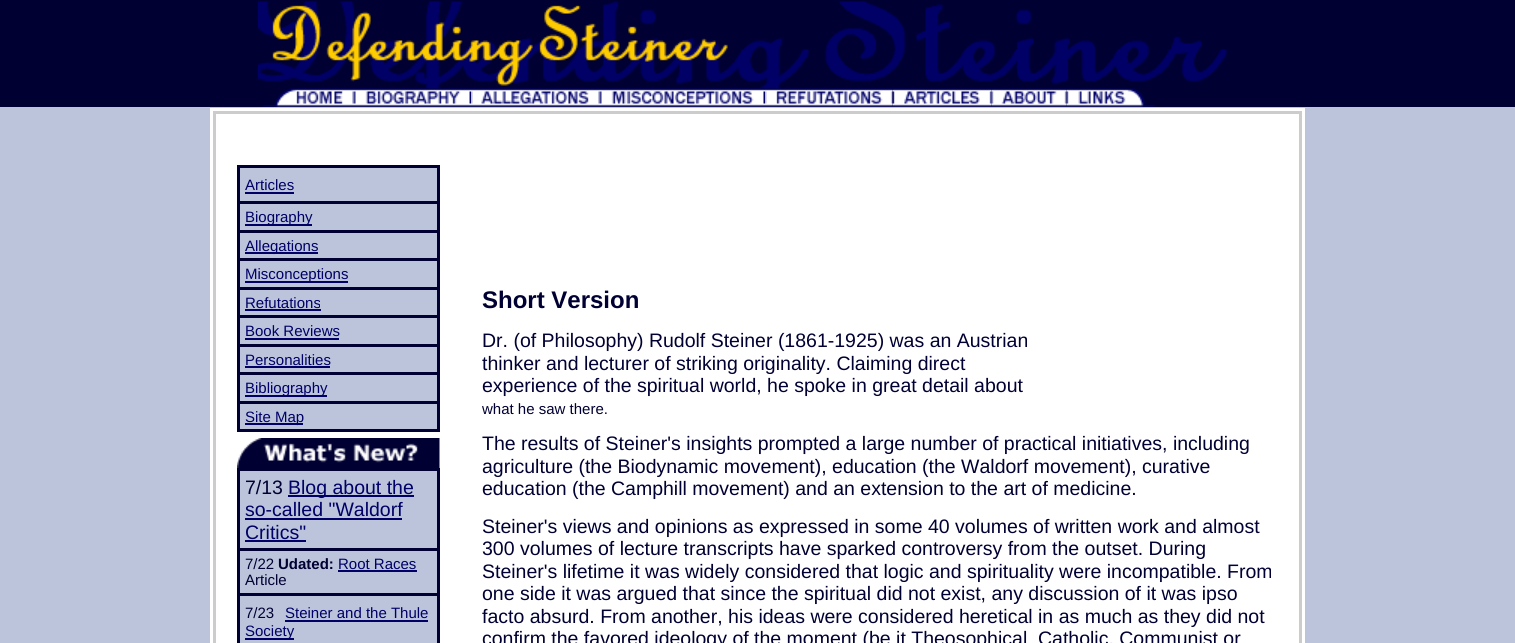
#include <cairo/cairo.h>
#include <math.h>
#include <stddef.h>


static void draw_image(cairo_t *cr, const char *path, double x, double y, double w, double h) {
  cairo_surface_t *image = cairo_image_surface_create_from_png(path);
  cairo_save(cr);
  cairo_set_source_surface(cr, image, x, y);
  cairo_rectangle(cr, x, y, w, h);
  cairo_fill(cr);
  cairo_restore(cr);
  cairo_surface_destroy(image);
}

static void draw(cairo_t *cr) {
  cairo_set_source_rgb(cr, 187 / 255.0, 196 / 255.0, 219 / 255.0);
  cairo_paint(cr);
  cairo_set_source_rgb(cr, 0, 0, 51 / 255.0);
  cairo_rectangle(cr, 0, 0, 1515, 107);
  cairo_fill(cr);
  draw_image(cr, "images/1.png", 258, 1, 549, 88);
  draw_image(cr, "images/2.png", 807, 1, 421, 84);
  draw_image(cr, "images/3.png", 262, 88, 92, 19);
  draw_image(cr, "images/4.png", 354, 88, 117, 19);
  draw_image(cr, "images/5.png", 471, 88, 129, 19);
  draw_image(cr, "images/6.png", 600, 88, 165, 19);
  draw_image(cr, "images/7.png", 765, 88, 128, 19);
  draw_image(cr, "images/8.png", 892, 88, 100, 19);
  draw_image(cr, "images/9.png", 991, 88, 76, 19);
  draw_image(cr, "images/10.png", 1066, 88, 89, 19);
  cairo_set_source_rgb(cr, 1, 1, 1);
  cairo_rectangle(cr, 210, 108, 1095, 535);
  cairo_fill(cr);
  cairo_set_source_rgb(cr, 204 / 255.0, 204 / 255.0, 204 / 255.0);
  cairo_rectangle(cr, 213, 111, 1089, 532);
  cairo_fill(cr);
  cairo_set_source_rgb(cr, 1, 1, 1);
  cairo_rectangle(cr, 216, 114, 1083, 529);
  cairo_fill(cr);
  cairo_set_source_rgb(cr, 0, 0, 51 / 255.0);
  cairo_rectangle(cr, 237, 165, 203, 267);
  cairo_fill(cr);
  cairo_set_source_rgb(cr, 187 / 255.0, 196 / 255.0, 219 / 255.0);
  cairo_rectangle(cr, 240, 168, 197, 33);
  cairo_fill(cr);
  cairo_set_source_rgb(cr, 0, 0, 102 / 255.0);
  cairo_rectangle(cr, 245, 192, 49, 2);
  cairo_fill(cr);
  cairo_set_source_rgb(cr, 187 / 255.0, 196 / 255.0, 219 / 255.0);
  cairo_rectangle(cr, 240, 204, 197, 26);
  cairo_fill(cr);
  cairo_set_source_rgb(cr, 0, 0, 102 / 255.0);
  cairo_rectangle(cr, 245, 224, 67, 2);
  cairo_fill(cr);
  cairo_set_source_rgb(cr, 187 / 255.0, 196 / 255.0, 219 / 255.0);
  cairo_rectangle(cr, 240, 233, 197, 25);
  cairo_fill(cr);
  cairo_set_source_rgb(cr, 0, 0, 102 / 255.0);
  cairo_rectangle(cr, 245, 252, 73, 2);
  cairo_fill(cr);
  cairo_set_source_rgb(cr, 187 / 255.0, 196 / 255.0, 219 / 255.0);
  cairo_rectangle(cr, 240, 261, 197, 26);
  cairo_fill(cr);
  cairo_set_source_rgb(cr, 0, 0, 102 / 255.0);
  cairo_rectangle(cr, 245, 281, 103, 2);
  cairo_fill(cr);
  cairo_set_source_rgb(cr, 187 / 255.0, 196 / 255.0, 219 / 255.0);
  cairo_rectangle(cr, 240, 290, 197, 25);
  cairo_fill(cr);
  cairo_set_source_rgb(cr, 0, 0, 102 / 255.0);
  cairo_rectangle(cr, 245, 309, 76, 2);
  cairo_fill(cr);
  cairo_set_source_rgb(cr, 187 / 255.0, 196 / 255.0, 219 / 255.0);
  cairo_rectangle(cr, 240, 318, 197, 26);
  cairo_fill(cr);
  cairo_set_source_rgb(cr, 0, 0, 102 / 255.0);
  cairo_rectangle(cr, 245, 338, 94, 2);
  cairo_fill(cr);
  cairo_set_source_rgb(cr, 187 / 255.0, 196 / 255.0, 219 / 255.0);
  cairo_rectangle(cr, 240, 347, 197, 25);
  cairo_fill(cr);
  cairo_set_source_rgb(cr, 0, 0, 102 / 255.0);
  cairo_rectangle(cr, 245, 366, 85, 2);
  cairo_fill(cr);
  cairo_set_source_rgb(cr, 187 / 255.0, 196 / 255.0, 219 / 255.0);
  cairo_rectangle(cr, 240, 375, 197, 26);
  cairo_fill(cr);
  cairo_set_source_rgb(cr, 0, 0, 102 / 255.0);
  cairo_rectangle(cr, 245, 395, 82, 2);
  cairo_fill(cr);
  cairo_set_source_rgb(cr, 187 / 255.0, 196 / 255.0, 219 / 255.0);
  cairo_rectangle(cr, 240, 404, 197, 25);
  cairo_fill(cr);
  cairo_set_source_rgb(cr, 0, 0, 102 / 255.0);
  cairo_rectangle(cr, 245, 423, 58, 2);
  cairo_fill(cr);
  draw_image(cr, "images/11.png", 237, 438, 203, 30);
  cairo_set_source_rgb(cr, 0, 0, 51 / 255.0);
  cairo_rectangle(cr, 237, 468, 203, 175);
  cairo_fill(cr);
  cairo_set_source_rgb(cr, 187 / 255.0, 196 / 255.0, 219 / 255.0);
  cairo_rectangle(cr, 240, 471, 197, 77);
  cairo_fill(cr);
  cairo_set_source_rgb(cr, 0, 0, 102 / 255.0);
  cairo_rectangle(cr, 288, 495, 126, 2);
  cairo_fill(cr);
  cairo_rectangle(cr, 245, 518, 157, 2);
  cairo_fill(cr);
  cairo_rectangle(cr, 245, 540, 61, 2);
  cairo_fill(cr);
  cairo_set_source_rgb(cr, 187 / 255.0, 196 / 255.0, 219 / 255.0);
  cairo_rectangle(cr, 240, 551, 197, 42);
  cairo_fill(cr);
  cairo_set_source_rgb(cr, 0, 0, 102 / 255.0);
  cairo_rectangle(cr, 338, 570, 79, 2);
  cairo_fill(cr);
  cairo_set_source_rgb(cr, 187 / 255.0, 196 / 255.0, 219 / 255.0);
  cairo_rectangle(cr, 240, 596, 197, 47);
  cairo_fill(cr);
  cairo_set_source_rgb(cr, 0, 0, 102 / 255.0);
  cairo_rectangle(cr, 285, 620, 143, 2);
  cairo_fill(cr);
  cairo_rectangle(cr, 245, 638, 49, 2);
  cairo_fill(cr);
  cairo_select_font_face(cr, "Liberation Sans", CAIRO_FONT_SLANT_NORMAL, CAIRO_FONT_WEIGHT_NORMAL);
  cairo_set_font_size(cr, 15);
  cairo_move_to(cr, 245, 190);
  cairo_show_text(cr, "Articles");
  cairo_move_to(cr, 245, 222);
  cairo_show_text(cr, "Biography");
  cairo_move_to(cr, 245, 251);
  cairo_show_text(cr, "Allegations");
  cairo_move_to(cr, 245, 279);
  cairo_show_text(cr, "Misconceptions");
  cairo_move_to(cr, 245, 308);
  cairo_show_text(cr, "Refutations");
  cairo_move_to(cr, 245, 336);
  cairo_show_text(cr, "Book Reviews");
  cairo_move_to(cr, 245, 365);
  cairo_show_text(cr, "Personalities");
  cairo_move_to(cr, 245, 393);
  cairo_show_text(cr, "Bibliography");
  cairo_move_to(cr, 245, 422);
  cairo_show_text(cr, "Site Map");
  cairo_set_font_size(cr, 19.5);
  cairo_set_source_rgb(cr, 0, 0, 51 / 255.0);
  cairo_move_to(cr, 245, 494);
  cairo_show_text(cr, "7/13");
  cairo_set_source_rgb(cr, 0, 0, 102 / 255.0);
  cairo_move_to(cr, 288, 494);
  cairo_show_text(cr, "Blog about the");
  cairo_move_to(cr, 245, 516);
  cairo_show_text(cr, "so-called \"Waldorf");
  cairo_move_to(cr, 245, 539);
  cairo_show_text(cr, "Critics\"");
  cairo_set_font_size(cr, 15);
  cairo_set_source_rgb(cr, 0, 0, 51 / 255.0);
  cairo_move_to(cr, 245, 569);
  cairo_show_text(cr, "7/22");
  cairo_select_font_face(cr, "Liberation Sans", CAIRO_FONT_SLANT_NORMAL, CAIRO_FONT_WEIGHT_BOLD);
  cairo_move_to(cr, 278, 569);
  cairo_show_text(cr, "Udated:");
  cairo_select_font_face(cr, "Liberation Sans", CAIRO_FONT_SLANT_NORMAL, CAIRO_FONT_WEIGHT_NORMAL);
  cairo_set_source_rgb(cr, 0, 0, 102 / 255.0);
  cairo_move_to(cr, 338, 569);
  cairo_show_text(cr, "Root Races");
  cairo_set_source_rgb(cr, 0, 0, 51 / 255.0);
  cairo_move_to(cr, 245, 585);
  cairo_show_text(cr, "Article");
  cairo_move_to(cr, 245, 618);
  cairo_show_text(cr, "7/23");
  cairo_set_source_rgb(cr, 0, 0, 102 / 255.0);
  cairo_move_to(cr, 285, 618);
  cairo_show_text(cr, "Steiner and the Thule");
  cairo_move_to(cr, 245, 636);
  cairo_show_text(cr, "Society");
  cairo_select_font_face(cr, "Liberation Sans", CAIRO_FONT_SLANT_NORMAL, CAIRO_FONT_WEIGHT_BOLD);
  cairo_set_font_size(cr, 24);
  cairo_set_source_rgb(cr, 0, 0, 51 / 255.0);
  cairo_move_to(cr, 482, 308);
  cairo_show_text(cr, "Short Version");
  cairo_select_font_face(cr, "Liberation Sans", CAIRO_FONT_SLANT_NORMAL, CAIRO_FONT_WEIGHT_NORMAL);
  cairo_set_font_size(cr, 19.5);
  cairo_move_to(cr, 482, 347);
  cairo_show_text(cr, "Dr. (of Philosophy) Rudolf Steiner (1861-1925) was an Austrian");
  cairo_move_to(cr, 482, 370);
  cairo_show_text(cr, "thinker and lecturer of striking originality. Claiming direct");
  cairo_move_to(cr, 482, 392);
  cairo_show_text(cr, "experience of the spiritual world, he spoke in great detail about");
  cairo_set_font_size(cr, 15);
  cairo_move_to(cr, 482, 414);
  cairo_show_text(cr, "what he saw there.");
  cairo_set_font_size(cr, 19.5);
  cairo_move_to(cr, 482, 450);
  cairo_show_text(cr, "The results of Steiner's insights prompted a large number of practical initiatives, including");
  cairo_move_to(cr, 482, 473);
  cairo_show_text(cr, "agriculture (the Biodynamic movement), education (the Waldorf movement), curative");
  cairo_move_to(cr, 482, 495);
  cairo_show_text(cr, "education (the Camphill movement) and an extension to the art of medicine.");
  cairo_move_to(cr, 482, 533);
  cairo_show_text(cr, "Steiner's views and opinions as expressed in some 40 volumes of written work and almost");
  cairo_move_to(cr, 482, 555);
  cairo_show_text(cr, "300 volumes of lecture transcripts have sparked controversy from the outset. During");
  cairo_move_to(cr, 482, 578);
  cairo_show_text(cr, "Steiner's lifetime it was widely considered that logic and spirituality were incompatible. From");
  cairo_move_to(cr, 482, 600);
  cairo_show_text(cr, "one side it was argued that since the spiritual did not exist, any discussion of it was ipso");
  cairo_move_to(cr, 482, 623);
  cairo_show_text(cr, "facto absurd. From another, his ideas were considered heretical in as much as they did not");
  cairo_move_to(cr, 482, 645);
  cairo_show_text(cr, "confirm the favored ideology of the moment (be it Theosophical");
  cairo_move_to(cr, 1038, 645);
  cairo_show_text(cr, "Catholic, Communist or");
}

int main(void) {
  cairo_surface_t *surface = cairo_image_surface_create(CAIRO_FORMAT_RGB24, 1515, 643);
  cairo_t *cr = cairo_create(surface);
  cairo_font_options_t *options = cairo_font_options_create();
  cairo_font_options_set_hint_metrics(options, CAIRO_HINT_METRICS_OFF);
  cairo_font_options_set_hint_style(options, CAIRO_HINT_STYLE_NONE);
  cairo_set_font_options(cr, options);
  cairo_set_miter_limit(cr, 4);
  draw(cr);
  cairo_surface_write_to_png(surface, "out.png");
  cairo_font_options_destroy(options);
  cairo_destroy(cr);
  cairo_surface_destroy(surface);
  return 0;
}
